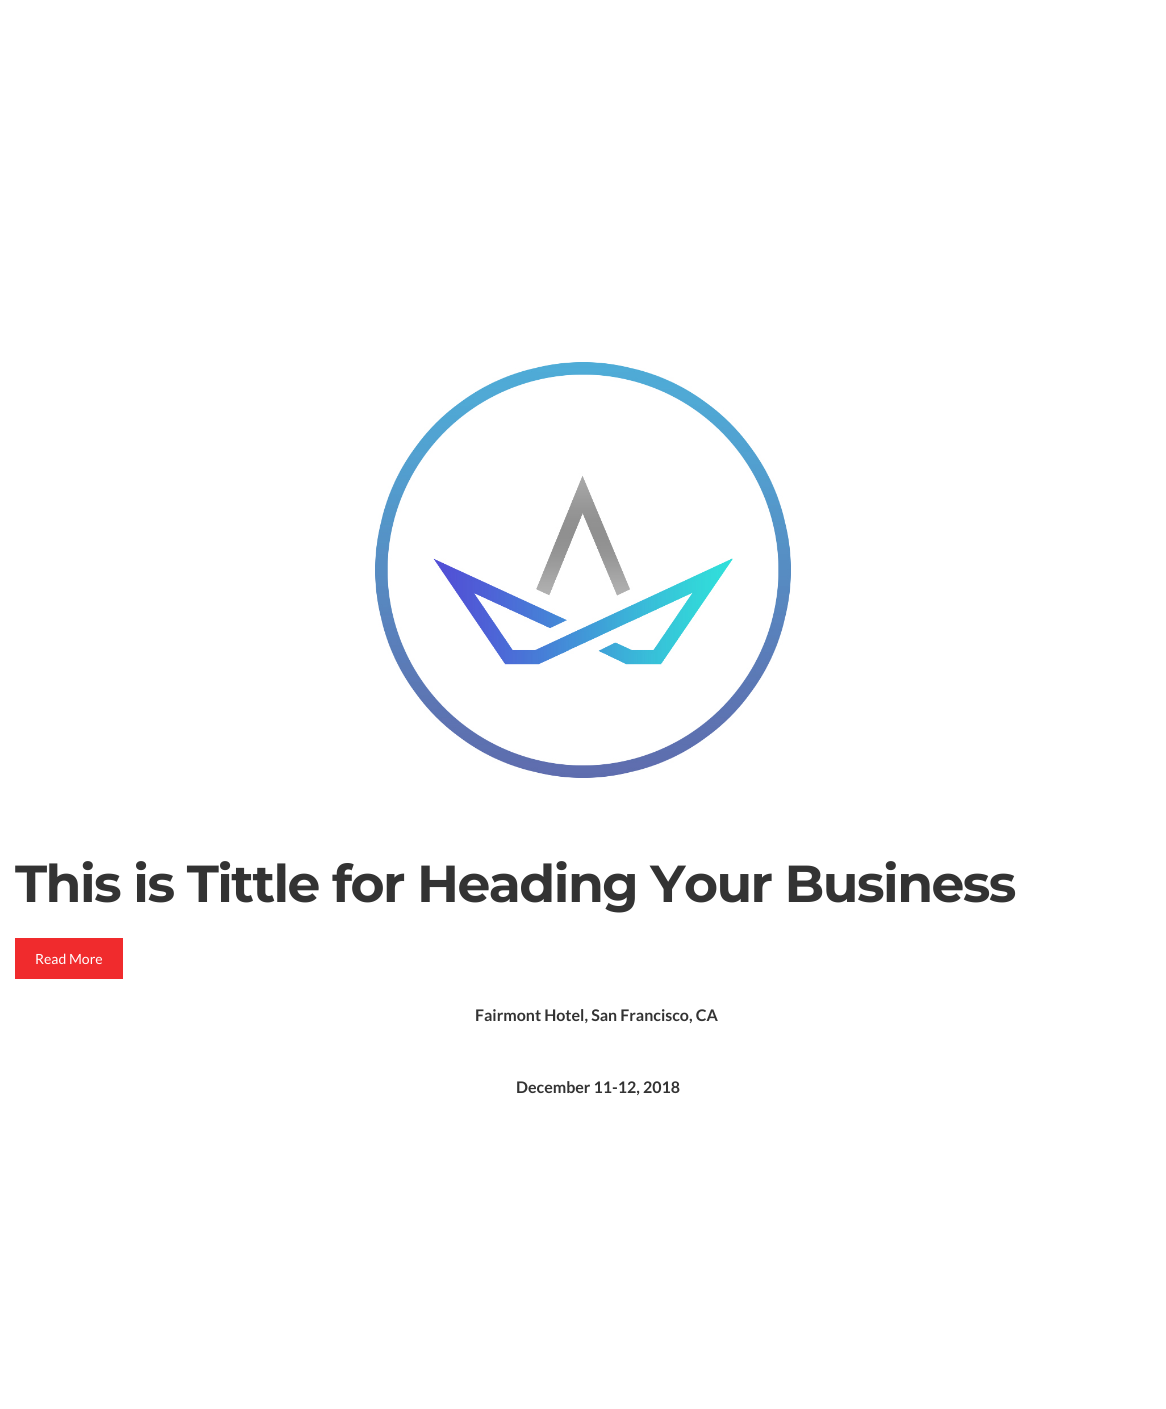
#include <cairo/cairo.h>
#include <math.h>
#include <stddef.h>


static void draw_spaced(cairo_t *cr, double x, double y, const char *s, double letter, double word) {
  cairo_move_to(cr, x, y);
  while (*s) {
    char ch[5] = {0};
    int n = 0;
    do ch[n++] = *s++; while ((*s & 0xC0) == 0x80);
    cairo_show_text(cr, ch);
    cairo_rel_move_to(cr, letter + word * (*ch == ' '), 0);
  }
}

static void draw_image(cairo_t *cr, const char *path, double x, double y, double w, double h) {
  cairo_surface_t *image = cairo_image_surface_create_from_png(path);
  cairo_save(cr);
  cairo_set_source_surface(cr, image, x, y);
  cairo_rectangle(cr, x, y, w, h);
  cairo_fill(cr);
  cairo_restore(cr);
  cairo_surface_destroy(image);
}

static void draw(cairo_t *cr) {
  cairo_set_source_rgb(cr, 1, 1, 1);
  cairo_paint(cr);
  draw_image(cr, "images/1.png", 375, 362, 416, 416);
  cairo_set_source_rgb(cr, 240 / 255.0, 43 / 255.0, 45 / 255.0);
  cairo_rectangle(cr, 15, 938, 108, 41);
  cairo_fill(cr);
  cairo_select_font_face(cr, "Montserrat", CAIRO_FONT_SLANT_NORMAL, CAIRO_FONT_WEIGHT_BOLD);
  cairo_set_font_size(cr, 52);
  cairo_set_source_rgb(cr, 51 / 255.0, 51 / 255.0, 51 / 255.0);
  draw_spaced(cr, 15, 902, "This is Tittle for Heading Your Business", -1.55, 0);
  cairo_select_font_face(cr, "Lato", CAIRO_FONT_SLANT_NORMAL, CAIRO_FONT_WEIGHT_NORMAL);
  cairo_set_font_size(cr, 14);
  cairo_set_source_rgb(cr, 1, 1, 1);
  cairo_move_to(cr, 35, 964);
  cairo_show_text(cr, "Read More");
  cairo_select_font_face(cr, "Lato", CAIRO_FONT_SLANT_NORMAL, CAIRO_FONT_WEIGHT_BOLD);
  cairo_set_font_size(cr, 16);
  cairo_set_source_rgb(cr, 51 / 255.0, 51 / 255.0, 51 / 255.0);
  cairo_move_to(cr, 475, 1021);
  cairo_show_text(cr, "Fairmont Hotel, San Francisco, CA");
  cairo_move_to(cr, 516, 1093);
  cairo_show_text(cr, "December 11-12, 2018");
}

int main(void) {
  cairo_surface_t *surface = cairo_image_surface_create(CAIRO_FORMAT_RGB24, 1166, 1409);
  cairo_t *cr = cairo_create(surface);
  cairo_font_options_t *options = cairo_font_options_create();
  cairo_font_options_set_hint_metrics(options, CAIRO_HINT_METRICS_OFF);
  cairo_font_options_set_hint_style(options, CAIRO_HINT_STYLE_NONE);
  cairo_set_font_options(cr, options);
  cairo_set_miter_limit(cr, 4);
  draw(cr);
  cairo_surface_write_to_png(surface, "out.png");
  cairo_font_options_destroy(options);
  cairo_destroy(cr);
  cairo_surface_destroy(surface);
  return 0;
}
